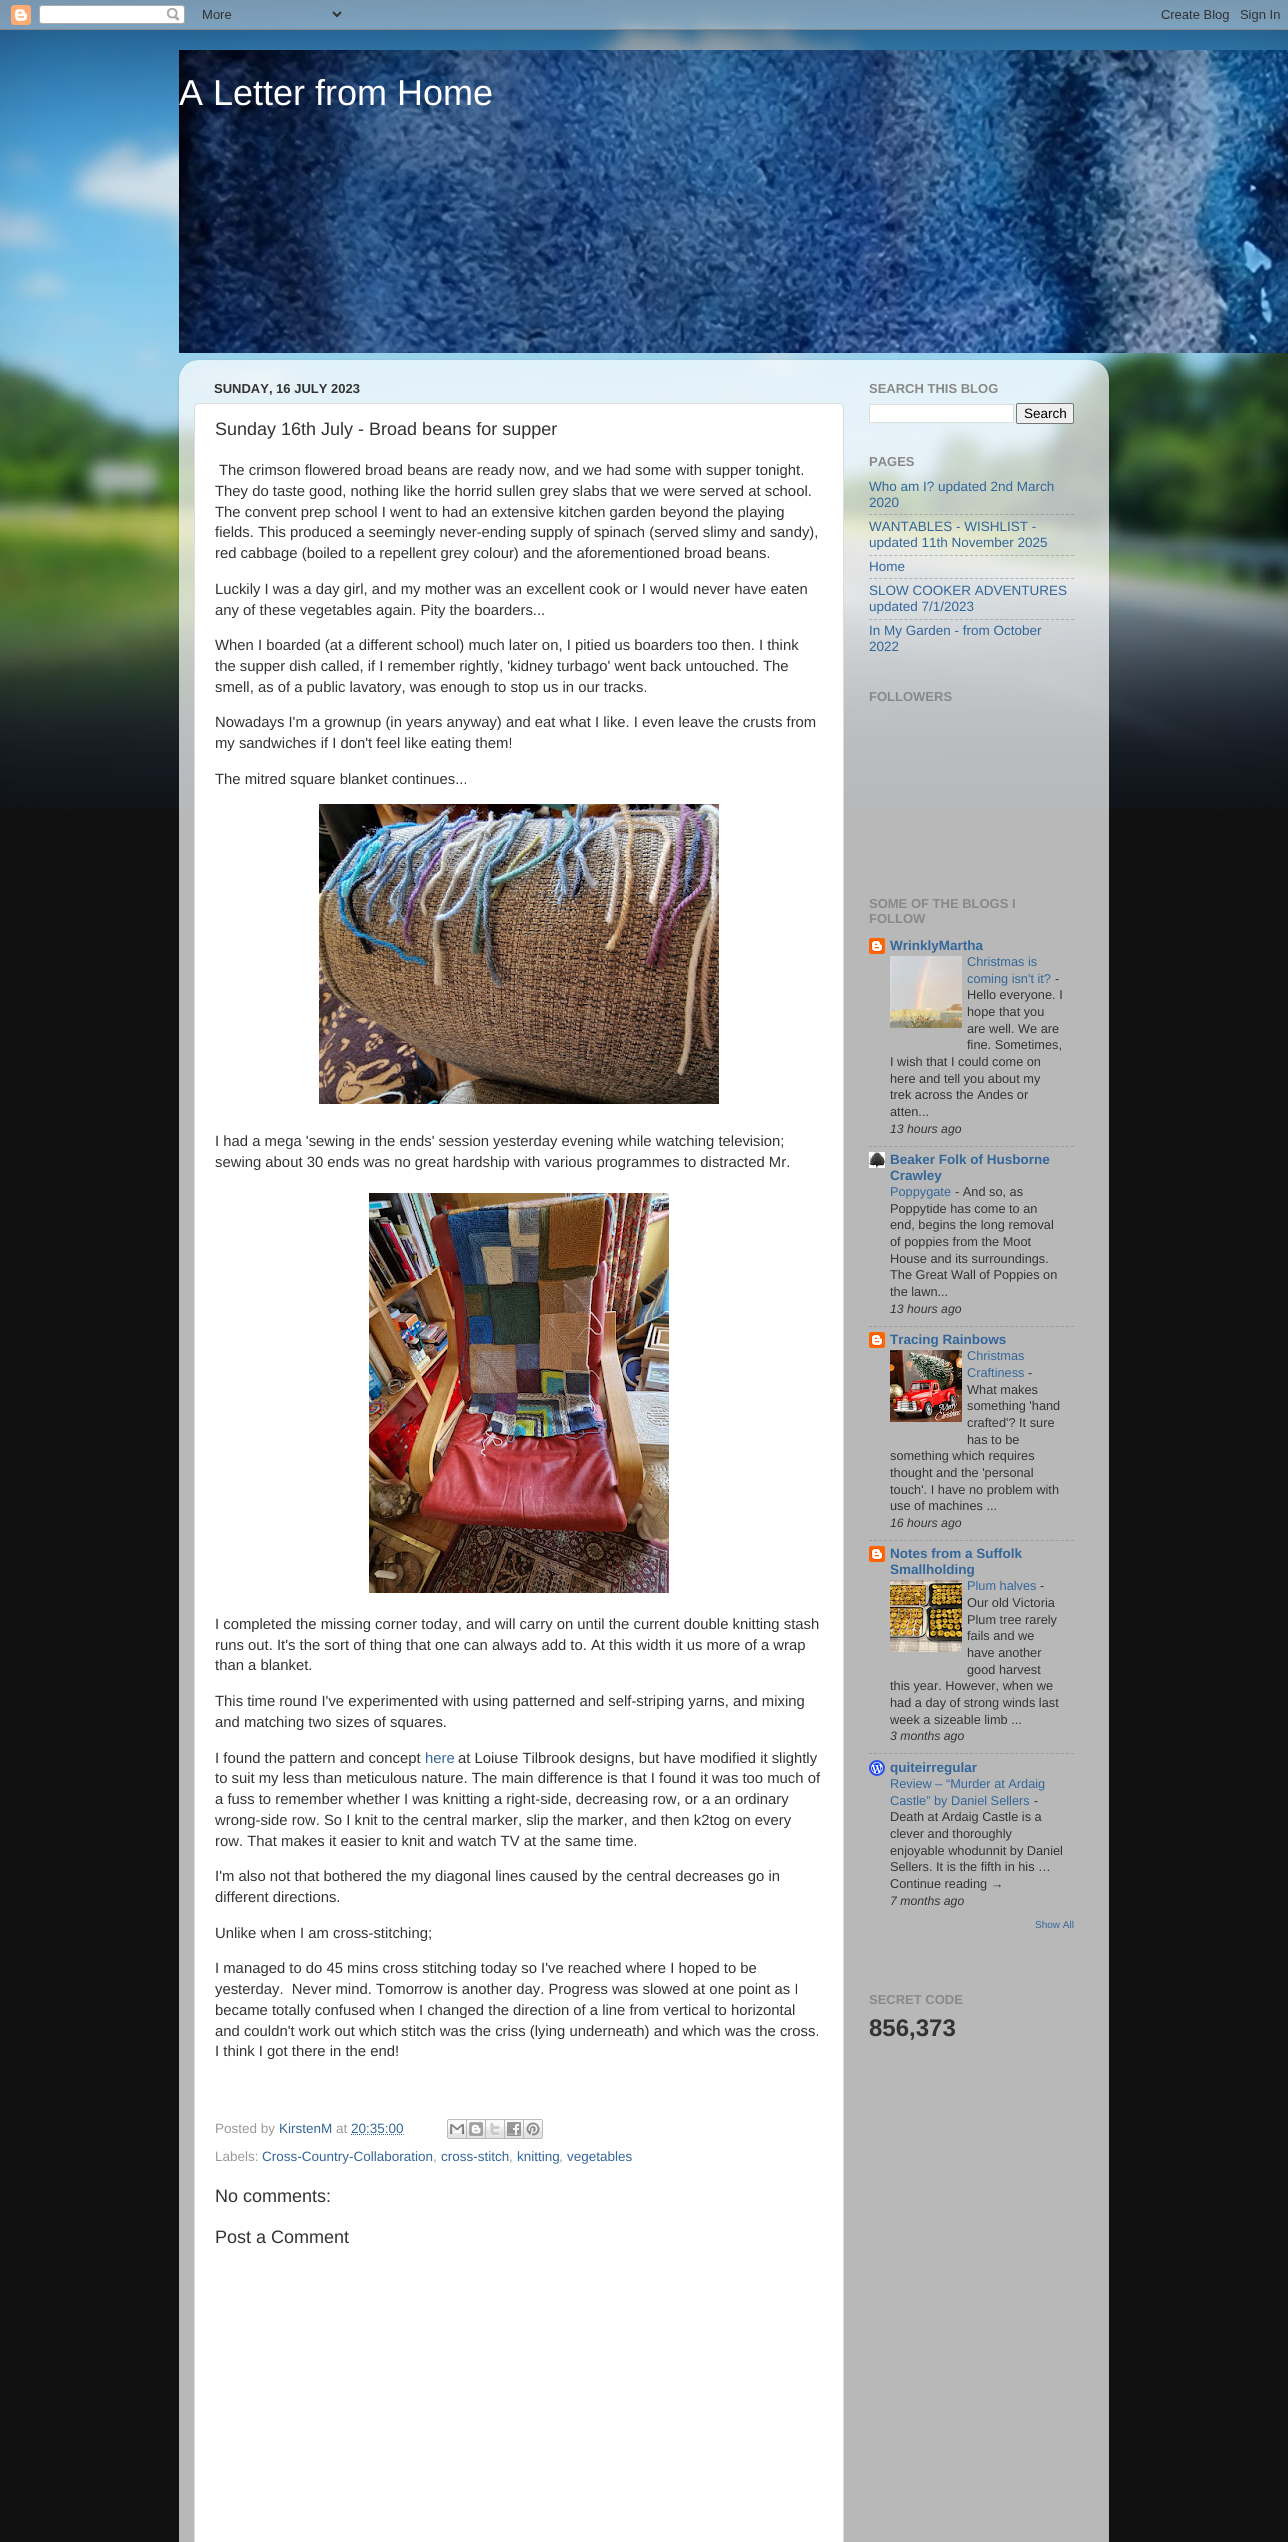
#include <cairo/cairo.h>
#include <math.h>
#include <stddef.h>


static void rounded_rect(cairo_t *cr, double x, double y, double w, double h, double r) {
  cairo_new_sub_path(cr);
  cairo_arc(cr, x + w - r, y + h - r, r, 0, M_PI / 2);
  cairo_arc(cr, x + r, y + h - r, r, M_PI / 2, M_PI);
  cairo_arc(cr, x + r, y + r, r, M_PI, 1.5 * M_PI);
  cairo_arc(cr, x + w - r, y + r, r, 1.5 * M_PI, 2 * M_PI);
  cairo_close_path(cr);
}

static void draw_shadow(cairo_t *cr, double x, double y, double w, double h, double r, double blur, double alpha) {
  cairo_push_group_with_content(cr, CAIRO_CONTENT_ALPHA);
  cairo_set_operator(cr, CAIRO_OPERATOR_SOURCE);
  for (int i = 15; i >= -15 && fmin(w, h) + blur * i / 3 > 0; i -= 2) {
    double e = blur * i / 6;
    cairo_set_source_rgba(cr, 0, 0, 0, alpha * erfc((i - 1) / 8.5) / 2);
    rounded_rect(cr, x - e, y - e, w + 2 * e, h + 2 * e, fmax(0, fmin(r + e + blur * .6, fmin(w, h) / 2 + e)));
    cairo_fill(cr);
  }
  cairo_pattern_t *soft = cairo_pop_group(cr);
  cairo_mask(cr, soft);
  cairo_pattern_destroy(soft);
}

static void draw_image(cairo_t *cr, const char *path, double x, double y, double w, double h) {
  cairo_surface_t *image = cairo_image_surface_create_from_png(path);
  cairo_save(cr);
  cairo_set_source_surface(cr, image, x, y);
  cairo_rectangle(cr, x, y, w, h);
  cairo_fill(cr);
  cairo_restore(cr);
  cairo_surface_destroy(image);
}

static void draw(cairo_t *cr) {
  cairo_set_source_rgb(cr, 17 / 255.0, 17 / 255.0, 17 / 255.0);
  cairo_paint(cr);
  draw_image(cr, "images/1.png", 0, 0, 1288, 809);
  draw_image(cr, "images/2.png", 0, 0, 1288, 30);
  draw_image(cr, "images/3.png", 179, 50, 1109, 303);
  cairo_save(cr);
  cairo_set_fill_rule(cr, CAIRO_FILL_RULE_EVEN_ODD);
  cairo_new_path(cr);
  cairo_move_to(cr, 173, 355);
  cairo_line_to(cr, 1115, 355);
  cairo_line_to(cr, 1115, 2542);
  cairo_line_to(cr, 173, 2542);
  cairo_close_path(cr);
  cairo_move_to(cr, 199, 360);
  cairo_line_to(cr, 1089, 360);
  cairo_curve_to(cr, 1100, 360, 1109, 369, 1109, 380);
  cairo_line_to(cr, 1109, 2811);
  cairo_line_to(cr, 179, 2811);
  cairo_line_to(cr, 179, 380);
  cairo_curve_to(cr, 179, 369, 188, 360, 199, 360);
  cairo_close_path(cr);
  cairo_clip(cr);
  cairo_set_source_rgb(cr, 0, 0, 0);
  draw_shadow(cr, 179, 361, 930, 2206, 20, 1.5, 0.15);
  cairo_restore(cr);
  draw_image(cr, "images/4.png", 179, 360, 930, 2182);
  cairo_set_source_rgb(cr, 1, 1, 1);
  rounded_rect(cr, 194.5, 403.5, 649, 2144, 4.5);
  cairo_fill_preserve(cr);
  cairo_set_source_rgb(cr, 221 / 255.0, 221 / 255.0, 221 / 255.0);
  cairo_set_line_width(cr, 1);
  cairo_stroke(cr);
  draw_image(cr, "images/5.png", 319, 804, 400, 300);
  draw_image(cr, "images/6.png", 369, 1193, 300, 400);
  cairo_new_path(cr);
  cairo_move_to(cr, 351, 2134.5);
  cairo_line_to(cr, 403.5, 2134.5);
  cairo_set_source_rgb(cr, 51 / 255.0, 102 / 255.0, 153 / 255.0);
  cairo_set_dash(cr, (double[]){1, 1}, 2, 0);
  cairo_stroke(cr);
  draw_image(cr, "images/7.png", 447, 2119, 20, 20);
  draw_image(cr, "images/8.png", 467, 2119, 19, 20);
  draw_image(cr, "images/9.png", 486, 2119, 19, 20);
  draw_image(cr, "images/10.png", 505, 2119, 19, 20);
  draw_image(cr, "images/11.png", 524, 2119, 19, 20);
  cairo_set_source_rgb(cr, 1, 1, 1);
  cairo_rectangle(cr, 869.5, 404.5, 144, 18);
  cairo_fill_preserve(cr);
  cairo_set_source_rgb(cr, 221 / 255.0, 221 / 255.0, 221 / 255.0);
  cairo_set_dash(cr, NULL, 0, 0);
  cairo_stroke(cr);
  cairo_set_source_rgb(cr, 239 / 255.0, 239 / 255.0, 239 / 255.0);
  rounded_rect(cr, 1016.5, 403.5, 57, 20, 1.5);
  cairo_fill_preserve(cr);
  cairo_set_source_rgb(cr, 118 / 255.0, 118 / 255.0, 118 / 255.0);
  cairo_stroke(cr);
  cairo_new_path(cr);
  cairo_move_to(cr, 869, 514.5);
  cairo_line_to(cr, 1074, 514.5);
  cairo_set_source_rgba(cr, 128 / 255.0, 128 / 255.0, 128 / 255.0, 0.5);
  cairo_set_dash(cr, (double[]){3, 2.05}, 2, 0);
  cairo_stroke(cr);
  cairo_new_path(cr);
  cairo_move_to(cr, 869, 555.5);
  cairo_line_to(cr, 1074, 555.5);
  cairo_stroke(cr);
  cairo_new_path(cr);
  cairo_move_to(cr, 869, 578.5);
  cairo_line_to(cr, 1074, 578.5);
  cairo_stroke(cr);
  cairo_new_path(cr);
  cairo_move_to(cr, 869, 619.5);
  cairo_line_to(cr, 1074, 619.5);
  cairo_stroke(cr);
  draw_image(cr, "images/12.png", 869, 938, 16, 16);
  draw_image(cr, "images/13.png", 890, 956, 72, 72);
  cairo_new_path(cr);
  cairo_move_to(cr, 869, 1146.5);
  cairo_line_to(cr, 1074, 1146.5);
  cairo_set_source_rgb(cr, 156 / 255.0, 156 / 255.0, 156 / 255.0);
  cairo_stroke(cr);
  draw_image(cr, "images/14.png", 869, 1152, 16, 16);
  cairo_new_path(cr);
  cairo_move_to(cr, 869, 1326.5);
  cairo_line_to(cr, 1074, 1326.5);
  cairo_stroke(cr);
  draw_image(cr, "images/12.png", 869, 1332, 16, 16);
  draw_image(cr, "images/15.png", 890, 1350, 72, 72);
  cairo_new_path(cr);
  cairo_move_to(cr, 869, 1540.5);
  cairo_line_to(cr, 1074, 1540.5);
  cairo_stroke(cr);
  draw_image(cr, "images/12.png", 869, 1546, 16, 16);
  draw_image(cr, "images/16.png", 890, 1580, 72, 72);
  cairo_new_path(cr);
  cairo_move_to(cr, 869, 1753.5);
  cairo_line_to(cr, 1074, 1753.5);
  cairo_stroke(cr);
  draw_image(cr, "images/17.png", 869, 1760, 16, 16);
  cairo_select_font_face(cr, "Liberation Sans", CAIRO_FONT_SLANT_NORMAL, CAIRO_FONT_WEIGHT_NORMAL);
  cairo_set_font_size(cr, 36);
  cairo_set_source_rgb(cr, 1, 1, 1);
  cairo_move_to(cr, 179, 105);
  cairo_show_text(cr, "A Letter from Home");
  cairo_select_font_face(cr, "Liberation Sans", CAIRO_FONT_SLANT_NORMAL, CAIRO_FONT_WEIGHT_BOLD);
  cairo_set_font_size(cr, 13);
  cairo_set_source_rgb(cr, 51 / 255.0, 51 / 255.0, 51 / 255.0);
  cairo_move_to(cr, 214, 393);
  cairo_show_text(cr, "SUNDAY, 16 JULY 2023");
  cairo_select_font_face(cr, "Liberation Sans", CAIRO_FONT_SLANT_NORMAL, CAIRO_FONT_WEIGHT_NORMAL);
  cairo_set_font_size(cr, 18);
  cairo_move_to(cr, 215, 435);
  cairo_show_text(cr, "Sunday 16th July - Broad beans for supper");
  cairo_set_font_size(cr, 14.85);
  cairo_move_to(cr, 219, 475);
  cairo_show_text(cr, "The crimson flowered broad beans are ready now, and we had some with supper tonight.");
  cairo_move_to(cr, 215, 496);
  cairo_show_text(cr, "They do taste good, nothing like the horrid sullen grey slabs that we were served at school.");
  cairo_move_to(cr, 215, 517);
  cairo_show_text(cr, "The convent prep school I went to had an extensive kitchen garden beyond the playing");
  cairo_move_to(cr, 215, 537);
  cairo_show_text(cr, "fields. This produced a seemingly never-ending supply of spinach (served slimy and sandy),");
  cairo_move_to(cr, 215, 558);
  cairo_show_text(cr, "red cabbage (boiled to a repellent grey colour) and the aforementioned broad beans.");
  cairo_move_to(cr, 215, 594);
  cairo_show_text(cr, "Luckily I was a day girl, and my mother was an excellent cook or I would never have eaten");
  cairo_move_to(cr, 215, 615);
  cairo_show_text(cr, "any of these vegetables again. Pity the boarders...");
  cairo_move_to(cr, 215, 650);
  cairo_show_text(cr, "When I boarded (at a different school) much later on, I pitied us boarders too then. I think");
  cairo_move_to(cr, 215, 671);
  cairo_show_text(cr, "the supper dish called, if I remember rightly, 'kidney turbago' went back untouched. The");
  cairo_move_to(cr, 215, 692);
  cairo_show_text(cr, "smell, as of a public lavatory, was enough to stop us in our tracks.");
  cairo_move_to(cr, 215, 727);
  cairo_show_text(cr, "Nowadays I'm a grownup (in years anyway) and eat what I like. I even leave the crusts from");
  cairo_move_to(cr, 215, 748);
  cairo_show_text(cr, "my sandwiches if I don't feel like eating them!");
  cairo_move_to(cr, 215, 784);
  cairo_show_text(cr, "The mitred square blanket continues...");
  cairo_move_to(cr, 215, 1146);
  cairo_show_text(cr, "I had a mega 'sewing in the ends' session yesterday evening while watching television;");
  cairo_move_to(cr, 215, 1167);
  cairo_show_text(cr, "sewing about 30 ends was no great hardship with various programmes to distracted Mr.");
  cairo_move_to(cr, 215, 1629);
  cairo_show_text(cr, "I completed the missing corner today, and will carry on until the current double knitting stash");
  cairo_move_to(cr, 215, 1650);
  cairo_show_text(cr, "runs out. It's the sort of thing that one can always add to. At this width it us more of a wrap");
  cairo_move_to(cr, 215, 1670);
  cairo_show_text(cr, "than a blanket.");
  cairo_move_to(cr, 215, 1706);
  cairo_show_text(cr, "This time round I've experimented with using patterned and self-striping yarns, and mixing");
  cairo_move_to(cr, 215, 1727);
  cairo_show_text(cr, "and matching two sizes of squares.");
  cairo_move_to(cr, 215, 1763);
  cairo_show_text(cr, "I found the pattern and concept");
  cairo_set_source_rgb(cr, 51 / 255.0, 102 / 255.0, 153 / 255.0);
  cairo_move_to(cr, 425, 1763);
  cairo_show_text(cr, "here");
  cairo_set_source_rgb(cr, 51 / 255.0, 51 / 255.0, 51 / 255.0);
  cairo_move_to(cr, 458, 1763);
  cairo_show_text(cr, "at Loiuse Tilbrook designs, but have modified it slightly");
  cairo_move_to(cr, 215, 1783);
  cairo_show_text(cr, "to suit my less than meticulous nature. The main difference is that I found it was too much of");
  cairo_move_to(cr, 215, 1804);
  cairo_show_text(cr, "a fuss to remember whether I was knitting a right-side, decreasing row, or a an ordinary");
  cairo_move_to(cr, 215, 1825);
  cairo_show_text(cr, "wrong-side row. So I knit to the central marker, slip the marker, and then k2tog on every");
  cairo_move_to(cr, 215, 1846);
  cairo_show_text(cr, "row. That makes it easier to knit and watch TV at the same time.");
  cairo_move_to(cr, 215, 1881);
  cairo_show_text(cr, "I'm also not that bothered the my diagonal lines caused by the central decreases go in");
  cairo_move_to(cr, 215, 1902);
  cairo_show_text(cr, "different directions.");
  cairo_move_to(cr, 215, 1938);
  cairo_show_text(cr, "Unlike when I am cross-stitching;");
  cairo_move_to(cr, 215, 1973);
  cairo_show_text(cr, "I managed to do 45 mins cross stitching today so I've reached where I hoped to be");
  cairo_move_to(cr, 215, 1994);
  cairo_show_text(cr, "yesterday.  Never mind. Tomorrow is another day. Progress was slowed at one point as I");
  cairo_move_to(cr, 215, 2015);
  cairo_show_text(cr, "became totally confused when I changed the direction of a line from vertical to horizontal");
  cairo_move_to(cr, 215, 2036);
  cairo_show_text(cr, "and couldn't work out which stitch was the criss (lying underneath) and which was the cross.");
  cairo_move_to(cr, 215, 2056);
  cairo_show_text(cr, "I think I got there in the end!");
  cairo_set_font_size(cr, 13.5);
  cairo_set_source_rgb(cr, 153 / 255.0, 153 / 255.0, 153 / 255.0);
  cairo_move_to(cr, 215, 2133);
  cairo_show_text(cr, "Posted by");
  cairo_set_source_rgb(cr, 51 / 255.0, 102 / 255.0, 153 / 255.0);
  cairo_move_to(cr, 279, 2133);
  cairo_show_text(cr, "KirstenM");
  cairo_set_source_rgb(cr, 153 / 255.0, 153 / 255.0, 153 / 255.0);
  cairo_move_to(cr, 336, 2133);
  cairo_show_text(cr, "at");
  cairo_set_source_rgb(cr, 51 / 255.0, 102 / 255.0, 153 / 255.0);
  cairo_move_to(cr, 351, 2133);
  cairo_show_text(cr, "20:35:00");
  cairo_set_source_rgb(cr, 153 / 255.0, 153 / 255.0, 153 / 255.0);
  cairo_move_to(cr, 215, 2161);
  cairo_show_text(cr, "Labels:");
  cairo_set_source_rgb(cr, 51 / 255.0, 102 / 255.0, 153 / 255.0);
  cairo_move_to(cr, 262, 2161);
  cairo_show_text(cr, "Cross-Country-Collaboration");
  cairo_set_source_rgb(cr, 153 / 255.0, 153 / 255.0, 153 / 255.0);
  cairo_move_to(cr, 433, 2161);
  cairo_show_text(cr, ",");
  cairo_set_source_rgb(cr, 51 / 255.0, 102 / 255.0, 153 / 255.0);
  cairo_move_to(cr, 441, 2161);
  cairo_show_text(cr, "cross-stitch");
  cairo_set_source_rgb(cr, 153 / 255.0, 153 / 255.0, 153 / 255.0);
  cairo_move_to(cr, 509, 2161);
  cairo_show_text(cr, ",");
  cairo_set_source_rgb(cr, 51 / 255.0, 102 / 255.0, 153 / 255.0);
  cairo_move_to(cr, 517, 2161);
  cairo_show_text(cr, "knitting");
  cairo_set_source_rgb(cr, 153 / 255.0, 153 / 255.0, 153 / 255.0);
  cairo_move_to(cr, 559, 2161);
  cairo_show_text(cr, ",");
  cairo_set_source_rgb(cr, 51 / 255.0, 102 / 255.0, 153 / 255.0);
  cairo_move_to(cr, 567, 2161);
  cairo_show_text(cr, "vegetables");
  cairo_set_font_size(cr, 18);
  cairo_set_source_rgb(cr, 51 / 255.0, 51 / 255.0, 51 / 255.0);
  cairo_move_to(cr, 215, 2202);
  cairo_show_text(cr, "No comments:");
  cairo_move_to(cr, 215, 2243);
  cairo_show_text(cr, "Post a Comment");
  cairo_select_font_face(cr, "Liberation Sans", CAIRO_FONT_SLANT_NORMAL, CAIRO_FONT_WEIGHT_BOLD);
  cairo_set_font_size(cr, 13);
  cairo_set_source_rgb(cr, 136 / 255.0, 136 / 255.0, 136 / 255.0);
  cairo_move_to(cr, 869, 393);
  cairo_show_text(cr, "SEARCH THIS BLOG");
  cairo_select_font_face(cr, "Liberation Sans", CAIRO_FONT_SLANT_NORMAL, CAIRO_FONT_WEIGHT_NORMAL);
  cairo_set_font_size(cr, 13.5);
  cairo_set_source_rgb(cr, 0, 0, 0);
  cairo_move_to(cr, 1024, 418);
  cairo_show_text(cr, "Search");
  cairo_select_font_face(cr, "Liberation Sans", CAIRO_FONT_SLANT_NORMAL, CAIRO_FONT_WEIGHT_BOLD);
  cairo_set_font_size(cr, 13);
  cairo_set_source_rgb(cr, 136 / 255.0, 136 / 255.0, 136 / 255.0);
  cairo_move_to(cr, 869, 466);
  cairo_show_text(cr, "PAGES");
  cairo_select_font_face(cr, "Liberation Sans", CAIRO_FONT_SLANT_NORMAL, CAIRO_FONT_WEIGHT_NORMAL);
  cairo_set_font_size(cr, 13.5);
  cairo_set_source_rgb(cr, 51 / 255.0, 102 / 255.0, 153 / 255.0);
  cairo_move_to(cr, 869, 491);
  cairo_show_text(cr, "Who am I? updated 2nd March");
  cairo_move_to(cr, 869, 507);
  cairo_show_text(cr, "2020");
  cairo_move_to(cr, 869, 531);
  cairo_show_text(cr, "WANTABLES - WISHLIST -");
  cairo_move_to(cr, 869, 547);
  cairo_show_text(cr, "updated 11th November 2025");
  cairo_move_to(cr, 869, 571);
  cairo_show_text(cr, "Home");
  cairo_move_to(cr, 869, 595);
  cairo_show_text(cr, "SLOW COOKER ADVENTURES");
  cairo_move_to(cr, 869, 611);
  cairo_show_text(cr, "updated 7/1/2023");
  cairo_move_to(cr, 869, 635);
  cairo_show_text(cr, "In My Garden - from October");
  cairo_move_to(cr, 869, 651);
  cairo_show_text(cr, "2022");
  cairo_select_font_face(cr, "Liberation Sans", CAIRO_FONT_SLANT_NORMAL, CAIRO_FONT_WEIGHT_BOLD);
  cairo_set_font_size(cr, 13);
  cairo_set_source_rgb(cr, 136 / 255.0, 136 / 255.0, 136 / 255.0);
  cairo_move_to(cr, 869, 701);
  cairo_show_text(cr, "FOLLOWERS");
  cairo_move_to(cr, 869, 908);
  cairo_show_text(cr, "SOME OF THE BLOGS I");
  cairo_move_to(cr, 869, 923);
  cairo_show_text(cr, "FOLLOW");
  cairo_set_font_size(cr, 13.5);
  cairo_set_source_rgb(cr, 51 / 255.0, 102 / 255.0, 153 / 255.0);
  cairo_move_to(cr, 890, 950);
  cairo_show_text(cr, "WrinklyMartha");
  cairo_select_font_face(cr, "Liberation Sans", CAIRO_FONT_SLANT_NORMAL, CAIRO_FONT_WEIGHT_NORMAL);
  cairo_set_font_size(cr, 12.75);
  cairo_move_to(cr, 967, 966);
  cairo_show_text(cr, "Christmas is");
  cairo_move_to(cr, 967, 983);
  cairo_show_text(cr, "coming isn't it?");
  cairo_set_source_rgb(cr, 51 / 255.0, 51 / 255.0, 51 / 255.0);
  cairo_move_to(cr, 1055, 983);
  cairo_show_text(cr, "-");
  cairo_move_to(cr, 967, 999);
  cairo_show_text(cr, "Hello everyone. I");
  cairo_move_to(cr, 967, 1016);
  cairo_show_text(cr, "hope that you");
  cairo_move_to(cr, 967, 1033);
  cairo_show_text(cr, "are well. We are");
  cairo_move_to(cr, 967, 1049);
  cairo_show_text(cr, "fine. Sometimes,");
  cairo_move_to(cr, 890, 1066);
  cairo_show_text(cr, "I wish that I could come on");
  cairo_move_to(cr, 890, 1083);
  cairo_show_text(cr, "here and tell you about my");
  cairo_move_to(cr, 890, 1099);
  cairo_show_text(cr, "trek across the Andes or");
  cairo_move_to(cr, 890, 1116);
  cairo_show_text(cr, "atten...");
  cairo_select_font_face(cr, "Liberation Sans", CAIRO_FONT_SLANT_ITALIC, CAIRO_FONT_WEIGHT_NORMAL);
  cairo_set_font_size(cr, 12.25);
  cairo_move_to(cr, 890, 1133);
  cairo_show_text(cr, "13 hours ago");
  cairo_select_font_face(cr, "Liberation Sans", CAIRO_FONT_SLANT_NORMAL, CAIRO_FONT_WEIGHT_BOLD);
  cairo_set_font_size(cr, 13.5);
  cairo_set_source_rgb(cr, 51 / 255.0, 102 / 255.0, 153 / 255.0);
  cairo_move_to(cr, 890, 1164);
  cairo_show_text(cr, "Beaker Folk of Husborne");
  cairo_move_to(cr, 890, 1180);
  cairo_show_text(cr, "Crawley");
  cairo_select_font_face(cr, "Liberation Sans", CAIRO_FONT_SLANT_NORMAL, CAIRO_FONT_WEIGHT_NORMAL);
  cairo_set_font_size(cr, 12.75);
  cairo_move_to(cr, 890, 1196);
  cairo_show_text(cr, "Poppygate");
  cairo_set_source_rgb(cr, 51 / 255.0, 51 / 255.0, 51 / 255.0);
  cairo_move_to(cr, 955, 1196);
  cairo_show_text(cr, "- And so, as");
  cairo_move_to(cr, 890, 1213);
  cairo_show_text(cr, "Poppytide has come to an");
  cairo_move_to(cr, 890, 1229);
  cairo_show_text(cr, "end, begins the long removal");
  cairo_move_to(cr, 890, 1246);
  cairo_show_text(cr, "of poppies from the Moot");
  cairo_move_to(cr, 890, 1263);
  cairo_show_text(cr, "House and its surroundings.");
  cairo_move_to(cr, 890, 1279);
  cairo_show_text(cr, "The Great Wall of Poppies on");
  cairo_move_to(cr, 890, 1296);
  cairo_show_text(cr, "the lawn...");
  cairo_select_font_face(cr, "Liberation Sans", CAIRO_FONT_SLANT_ITALIC, CAIRO_FONT_WEIGHT_NORMAL);
  cairo_set_font_size(cr, 12.25);
  cairo_move_to(cr, 890, 1313);
  cairo_show_text(cr, "13 hours ago");
  cairo_select_font_face(cr, "Liberation Sans", CAIRO_FONT_SLANT_NORMAL, CAIRO_FONT_WEIGHT_BOLD);
  cairo_set_font_size(cr, 13.5);
  cairo_set_source_rgb(cr, 51 / 255.0, 102 / 255.0, 153 / 255.0);
  cairo_move_to(cr, 890, 1344);
  cairo_show_text(cr, "Tracing Rainbows");
  cairo_select_font_face(cr, "Liberation Sans", CAIRO_FONT_SLANT_NORMAL, CAIRO_FONT_WEIGHT_NORMAL);
  cairo_set_font_size(cr, 12.75);
  cairo_move_to(cr, 967, 1360);
  cairo_show_text(cr, "Christmas");
  cairo_move_to(cr, 967, 1377);
  cairo_show_text(cr, "Craftiness");
  cairo_set_source_rgb(cr, 51 / 255.0, 51 / 255.0, 51 / 255.0);
  cairo_move_to(cr, 1028, 1377);
  cairo_show_text(cr, "-");
  cairo_move_to(cr, 967, 1394);
  cairo_show_text(cr, "What makes");
  cairo_move_to(cr, 967, 1410);
  cairo_show_text(cr, "something 'hand");
  cairo_move_to(cr, 967, 1427);
  cairo_show_text(cr, "crafted'? It sure");
  cairo_move_to(cr, 967, 1444);
  cairo_show_text(cr, "has to be");
  cairo_move_to(cr, 890, 1460);
  cairo_show_text(cr, "something which requires");
  cairo_move_to(cr, 890, 1477);
  cairo_show_text(cr, "thought and the 'personal");
  cairo_move_to(cr, 890, 1494);
  cairo_show_text(cr, "touch'. I have no problem with");
  cairo_move_to(cr, 890, 1510);
  cairo_show_text(cr, "use of machines ...");
  cairo_select_font_face(cr, "Liberation Sans", CAIRO_FONT_SLANT_ITALIC, CAIRO_FONT_WEIGHT_NORMAL);
  cairo_set_font_size(cr, 12.25);
  cairo_move_to(cr, 890, 1527);
  cairo_show_text(cr, "16 hours ago");
  cairo_select_font_face(cr, "Liberation Sans", CAIRO_FONT_SLANT_NORMAL, CAIRO_FONT_WEIGHT_BOLD);
  cairo_set_font_size(cr, 13.5);
  cairo_set_source_rgb(cr, 51 / 255.0, 102 / 255.0, 153 / 255.0);
  cairo_move_to(cr, 890, 1558);
  cairo_show_text(cr, "Notes from a Suffolk");
  cairo_move_to(cr, 890, 1574);
  cairo_show_text(cr, "Smallholding");
  cairo_select_font_face(cr, "Liberation Sans", CAIRO_FONT_SLANT_NORMAL, CAIRO_FONT_WEIGHT_NORMAL);
  cairo_set_font_size(cr, 12.75);
  cairo_move_to(cr, 967, 1590);
  cairo_show_text(cr, "Plum halves");
  cairo_set_source_rgb(cr, 51 / 255.0, 51 / 255.0, 51 / 255.0);
  cairo_move_to(cr, 1040, 1590);
  cairo_show_text(cr, "-");
  cairo_move_to(cr, 967, 1607);
  cairo_show_text(cr, "Our old Victoria");
  cairo_move_to(cr, 967, 1624);
  cairo_show_text(cr, "Plum tree rarely");
  cairo_move_to(cr, 967, 1640);
  cairo_show_text(cr, "fails and we");
  cairo_move_to(cr, 967, 1657);
  cairo_show_text(cr, "have another");
  cairo_move_to(cr, 967, 1674);
  cairo_show_text(cr, "good harvest");
  cairo_move_to(cr, 890, 1690);
  cairo_show_text(cr, "this year. However, when we");
  cairo_move_to(cr, 890, 1707);
  cairo_show_text(cr, "had a day of strong winds last");
  cairo_move_to(cr, 890, 1724);
  cairo_show_text(cr, "week a sizeable limb ...");
  cairo_select_font_face(cr, "Liberation Sans", CAIRO_FONT_SLANT_ITALIC, CAIRO_FONT_WEIGHT_NORMAL);
  cairo_set_font_size(cr, 12.25);
  cairo_move_to(cr, 890, 1740);
  cairo_show_text(cr, "3 months ago");
  cairo_select_font_face(cr, "Liberation Sans", CAIRO_FONT_SLANT_NORMAL, CAIRO_FONT_WEIGHT_BOLD);
  cairo_set_font_size(cr, 13.5);
  cairo_set_source_rgb(cr, 51 / 255.0, 102 / 255.0, 153 / 255.0);
  cairo_move_to(cr, 890, 1772);
  cairo_show_text(cr, "quiteirregular");
  cairo_select_font_face(cr, "Liberation Sans", CAIRO_FONT_SLANT_NORMAL, CAIRO_FONT_WEIGHT_NORMAL);
  cairo_set_font_size(cr, 12.75);
  cairo_move_to(cr, 890, 1788);
  cairo_show_text(cr, "Review – “Murder at Ardaig");
  cairo_move_to(cr, 890, 1805);
  cairo_show_text(cr, "Castle” by Daniel Sellers");
  cairo_set_source_rgb(cr, 51 / 255.0, 51 / 255.0, 51 / 255.0);
  cairo_move_to(cr, 1034, 1805);
  cairo_show_text(cr, "-");
  cairo_move_to(cr, 890, 1821);
  cairo_show_text(cr, "Death at Ardaig Castle is a");
  cairo_move_to(cr, 890, 1838);
  cairo_show_text(cr, "clever and thoroughly");
  cairo_move_to(cr, 890, 1855);
  cairo_show_text(cr, "enjoyable whodunnit by Daniel");
  cairo_move_to(cr, 890, 1871);
  cairo_show_text(cr, "Sellers. It is the fifth in his …");
  cairo_move_to(cr, 890, 1888);
  cairo_show_text(cr, "Continue reading →");
  cairo_select_font_face(cr, "Liberation Sans", CAIRO_FONT_SLANT_ITALIC, CAIRO_FONT_WEIGHT_NORMAL);
  cairo_set_font_size(cr, 12.25);
  cairo_move_to(cr, 890, 1905);
  cairo_show_text(cr, "7 months ago");
  cairo_select_font_face(cr, "Liberation Sans", CAIRO_FONT_SLANT_NORMAL, CAIRO_FONT_WEIGHT_NORMAL);
  cairo_set_font_size(cr, 10);
  cairo_set_source_rgb(cr, 51 / 255.0, 102 / 255.0, 153 / 255.0);
  cairo_move_to(cr, 1035, 1928);
  cairo_show_text(cr, "Show All");
  cairo_select_font_face(cr, "Liberation Sans", CAIRO_FONT_SLANT_NORMAL, CAIRO_FONT_WEIGHT_BOLD);
  cairo_set_font_size(cr, 13);
  cairo_set_source_rgb(cr, 136 / 255.0, 136 / 255.0, 136 / 255.0);
  cairo_move_to(cr, 869, 2004);
  cairo_show_text(cr, "SECRET CODE");
  cairo_set_font_size(cr, 24);
  cairo_set_source_rgb(cr, 51 / 255.0, 51 / 255.0, 51 / 255.0);
  cairo_move_to(cr, 869, 2036);
  cairo_show_text(cr, "856,373");
}

int main(void) {
  cairo_surface_t *surface = cairo_image_surface_create(CAIRO_FORMAT_RGB24, 1288, 2542);
  cairo_t *cr = cairo_create(surface);
  cairo_font_options_t *options = cairo_font_options_create();
  cairo_font_options_set_hint_metrics(options, CAIRO_HINT_METRICS_OFF);
  cairo_font_options_set_hint_style(options, CAIRO_HINT_STYLE_NONE);
  cairo_set_font_options(cr, options);
  cairo_set_miter_limit(cr, 4);
  draw(cr);
  cairo_surface_write_to_png(surface, "out.png");
  cairo_font_options_destroy(options);
  cairo_destroy(cr);
  cairo_surface_destroy(surface);
  return 0;
}
